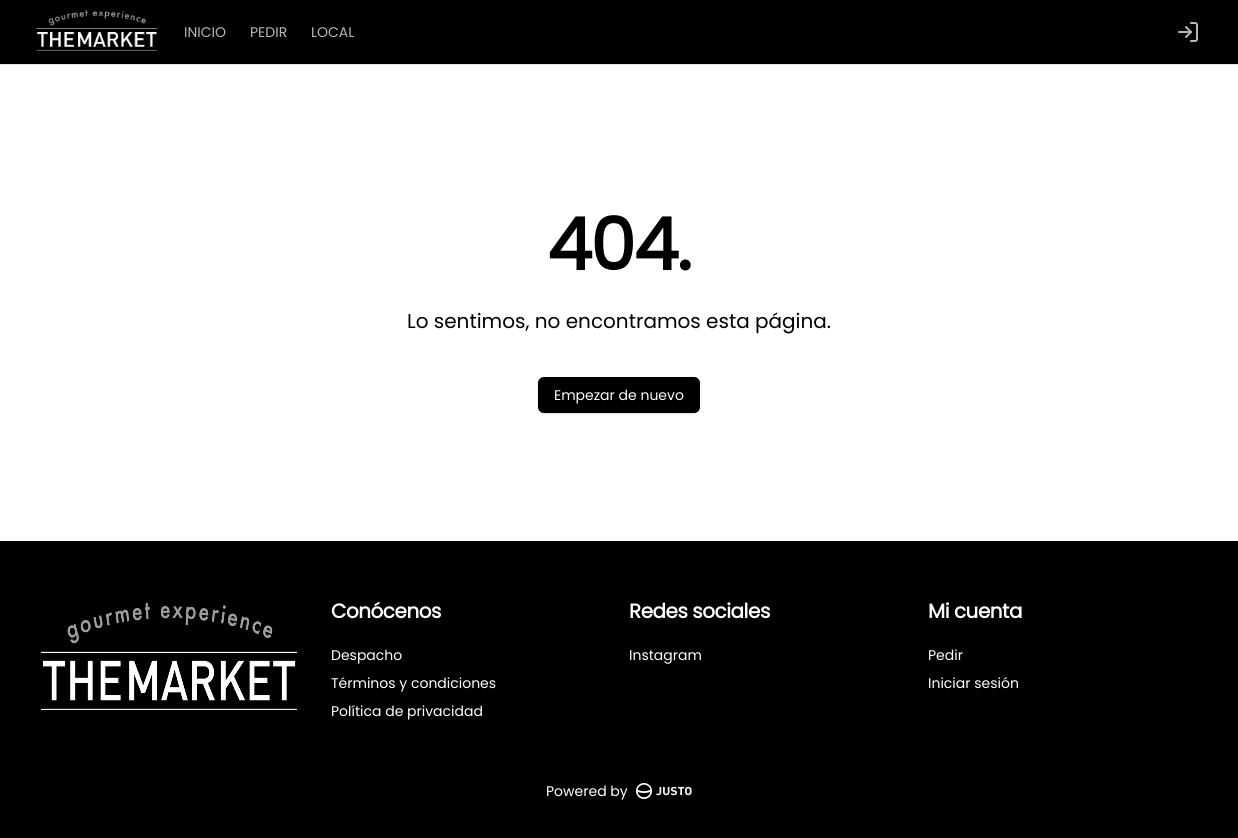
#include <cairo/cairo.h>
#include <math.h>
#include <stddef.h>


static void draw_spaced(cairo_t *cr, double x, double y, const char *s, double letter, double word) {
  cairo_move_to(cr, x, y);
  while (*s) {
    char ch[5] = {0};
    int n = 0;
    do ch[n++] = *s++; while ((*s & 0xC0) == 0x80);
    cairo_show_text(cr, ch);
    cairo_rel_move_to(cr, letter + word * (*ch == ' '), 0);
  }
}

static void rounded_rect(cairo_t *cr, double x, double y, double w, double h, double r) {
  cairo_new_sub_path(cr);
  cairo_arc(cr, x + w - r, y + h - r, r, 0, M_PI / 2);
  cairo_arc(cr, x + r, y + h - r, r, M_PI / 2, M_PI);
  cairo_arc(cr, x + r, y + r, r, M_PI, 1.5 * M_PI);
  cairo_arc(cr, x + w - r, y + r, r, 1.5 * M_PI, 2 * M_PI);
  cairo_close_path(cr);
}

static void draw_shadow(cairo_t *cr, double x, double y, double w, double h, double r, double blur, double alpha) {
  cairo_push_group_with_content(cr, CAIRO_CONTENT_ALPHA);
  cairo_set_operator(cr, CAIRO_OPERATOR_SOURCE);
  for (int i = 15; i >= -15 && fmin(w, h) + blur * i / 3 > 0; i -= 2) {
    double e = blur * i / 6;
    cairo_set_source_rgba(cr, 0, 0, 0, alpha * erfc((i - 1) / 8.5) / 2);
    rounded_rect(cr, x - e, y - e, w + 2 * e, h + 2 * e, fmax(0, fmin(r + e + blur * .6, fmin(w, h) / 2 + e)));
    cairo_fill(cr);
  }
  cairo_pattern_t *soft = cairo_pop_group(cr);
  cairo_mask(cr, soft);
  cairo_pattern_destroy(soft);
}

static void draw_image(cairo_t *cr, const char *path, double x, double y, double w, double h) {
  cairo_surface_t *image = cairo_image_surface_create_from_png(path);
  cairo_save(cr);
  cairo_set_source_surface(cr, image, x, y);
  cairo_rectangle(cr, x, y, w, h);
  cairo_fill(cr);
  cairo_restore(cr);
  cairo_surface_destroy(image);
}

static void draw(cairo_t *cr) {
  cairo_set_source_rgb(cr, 1, 1, 1);
  cairo_paint(cr);
  cairo_set_source_rgb(cr, 0, 0, 0);
  cairo_rectangle(cr, 0, 0, 1238, 64);
  cairo_fill(cr);
  cairo_set_source_rgb(cr, 229 / 255.0, 229 / 255.0, 229 / 255.0);
  cairo_rectangle(cr, 0, 64, 1238, 1);
  cairo_fill(cr);
  draw_image(cr, "images/1.png", 36, 10, 122, 41);
  draw_image(cr, "images/2.png", 1178, 22, 20, 20);
  cairo_set_source_rgb(cr, 0, 0, 0);
  draw_shadow(cr, 539, 379, 160, 34, 5, 1, 0.1);
  draw_shadow(cr, 538, 378, 162, 36, 6, 1.5, 0.1);
  cairo_set_source_rgb(cr, 0, 0, 0);
  rounded_rect(cr, 538, 377, 162, 36, 6);
  cairo_fill(cr);
  cairo_rectangle(cr, 0, 541, 1238, 297);
  cairo_fill(cr);
  draw_image(cr, "images/3.png", 41, 602, 256, 109);
  draw_image(cr, "images/4.png", 636, 783, 56, 16);
  cairo_select_font_face(cr, "Poppins", CAIRO_FONT_SLANT_NORMAL, CAIRO_FONT_WEIGHT_NORMAL);
  cairo_set_font_size(cr, 14);
  cairo_set_source_rgb(cr, 184 / 255.0, 184 / 255.0, 184 / 255.0);
  cairo_move_to(cr, 184, 37);
  cairo_show_text(cr, "INICIO");
  cairo_move_to(cr, 250, 37);
  cairo_show_text(cr, "PEDIR");
  cairo_move_to(cr, 311, 37);
  cairo_show_text(cr, "LOCAL");
  cairo_select_font_face(cr, "Poppins", CAIRO_FONT_SLANT_NORMAL, CAIRO_FONT_WEIGHT_BOLD);
  cairo_set_font_size(cr, 72);
  cairo_set_source_rgb(cr, 0, 0, 0);
  draw_spaced(cr, 547, 270, "404.", -2, 0);
  cairo_select_font_face(cr, "Poppins", CAIRO_FONT_SLANT_NORMAL, CAIRO_FONT_WEIGHT_NORMAL);
  cairo_set_font_size(cr, 20);
  cairo_move_to(cr, 407, 328);
  cairo_show_text(cr, "Lo sentimos, no encontramos esta página.");
  cairo_set_font_size(cr, 14);
  cairo_set_source_rgb(cr, 1, 1, 1);
  cairo_move_to(cr, 554, 400);
  cairo_show_text(cr, "Empezar de nuevo");
  cairo_select_font_face(cr, "Poppins", CAIRO_FONT_SLANT_NORMAL, CAIRO_FONT_WEIGHT_BOLD);
  cairo_set_font_size(cr, 20);
  draw_spaced(cr, 331, 618, "Conócenos", -0.5, 0);
  cairo_select_font_face(cr, "Poppins", CAIRO_FONT_SLANT_NORMAL, CAIRO_FONT_WEIGHT_NORMAL);
  cairo_set_font_size(cr, 14);
  cairo_move_to(cr, 331, 660);
  cairo_show_text(cr, "Despacho");
  cairo_move_to(cr, 331, 688);
  cairo_show_text(cr, "Términos y condiciones");
  cairo_move_to(cr, 331, 716);
  cairo_show_text(cr, "Política de privacidad");
  cairo_select_font_face(cr, "Poppins", CAIRO_FONT_SLANT_NORMAL, CAIRO_FONT_WEIGHT_BOLD);
  cairo_set_font_size(cr, 20);
  draw_spaced(cr, 629, 618, "Redes sociales", -0.5, 0);
  cairo_select_font_face(cr, "Poppins", CAIRO_FONT_SLANT_NORMAL, CAIRO_FONT_WEIGHT_NORMAL);
  cairo_set_font_size(cr, 14);
  cairo_move_to(cr, 629, 660);
  cairo_show_text(cr, "Instagram");
  cairo_select_font_face(cr, "Poppins", CAIRO_FONT_SLANT_NORMAL, CAIRO_FONT_WEIGHT_BOLD);
  cairo_set_font_size(cr, 20);
  draw_spaced(cr, 928, 618, "Mi cuenta", -0.5, 0);
  cairo_select_font_face(cr, "Poppins", CAIRO_FONT_SLANT_NORMAL, CAIRO_FONT_WEIGHT_NORMAL);
  cairo_set_font_size(cr, 14);
  cairo_move_to(cr, 928, 660);
  cairo_show_text(cr, "Pedir");
  cairo_move_to(cr, 928, 688);
  cairo_show_text(cr, "Iniciar sesión");
  cairo_move_to(cr, 546, 796);
  cairo_show_text(cr, "Powered by");
}

int main(void) {
  cairo_surface_t *surface = cairo_image_surface_create(CAIRO_FORMAT_RGB24, 1238, 838);
  cairo_t *cr = cairo_create(surface);
  cairo_font_options_t *options = cairo_font_options_create();
  cairo_font_options_set_hint_metrics(options, CAIRO_HINT_METRICS_OFF);
  cairo_font_options_set_hint_style(options, CAIRO_HINT_STYLE_NONE);
  cairo_set_font_options(cr, options);
  cairo_set_miter_limit(cr, 4);
  draw(cr);
  cairo_surface_write_to_png(surface, "out.png");
  cairo_font_options_destroy(options);
  cairo_destroy(cr);
  cairo_surface_destroy(surface);
  return 0;
}
